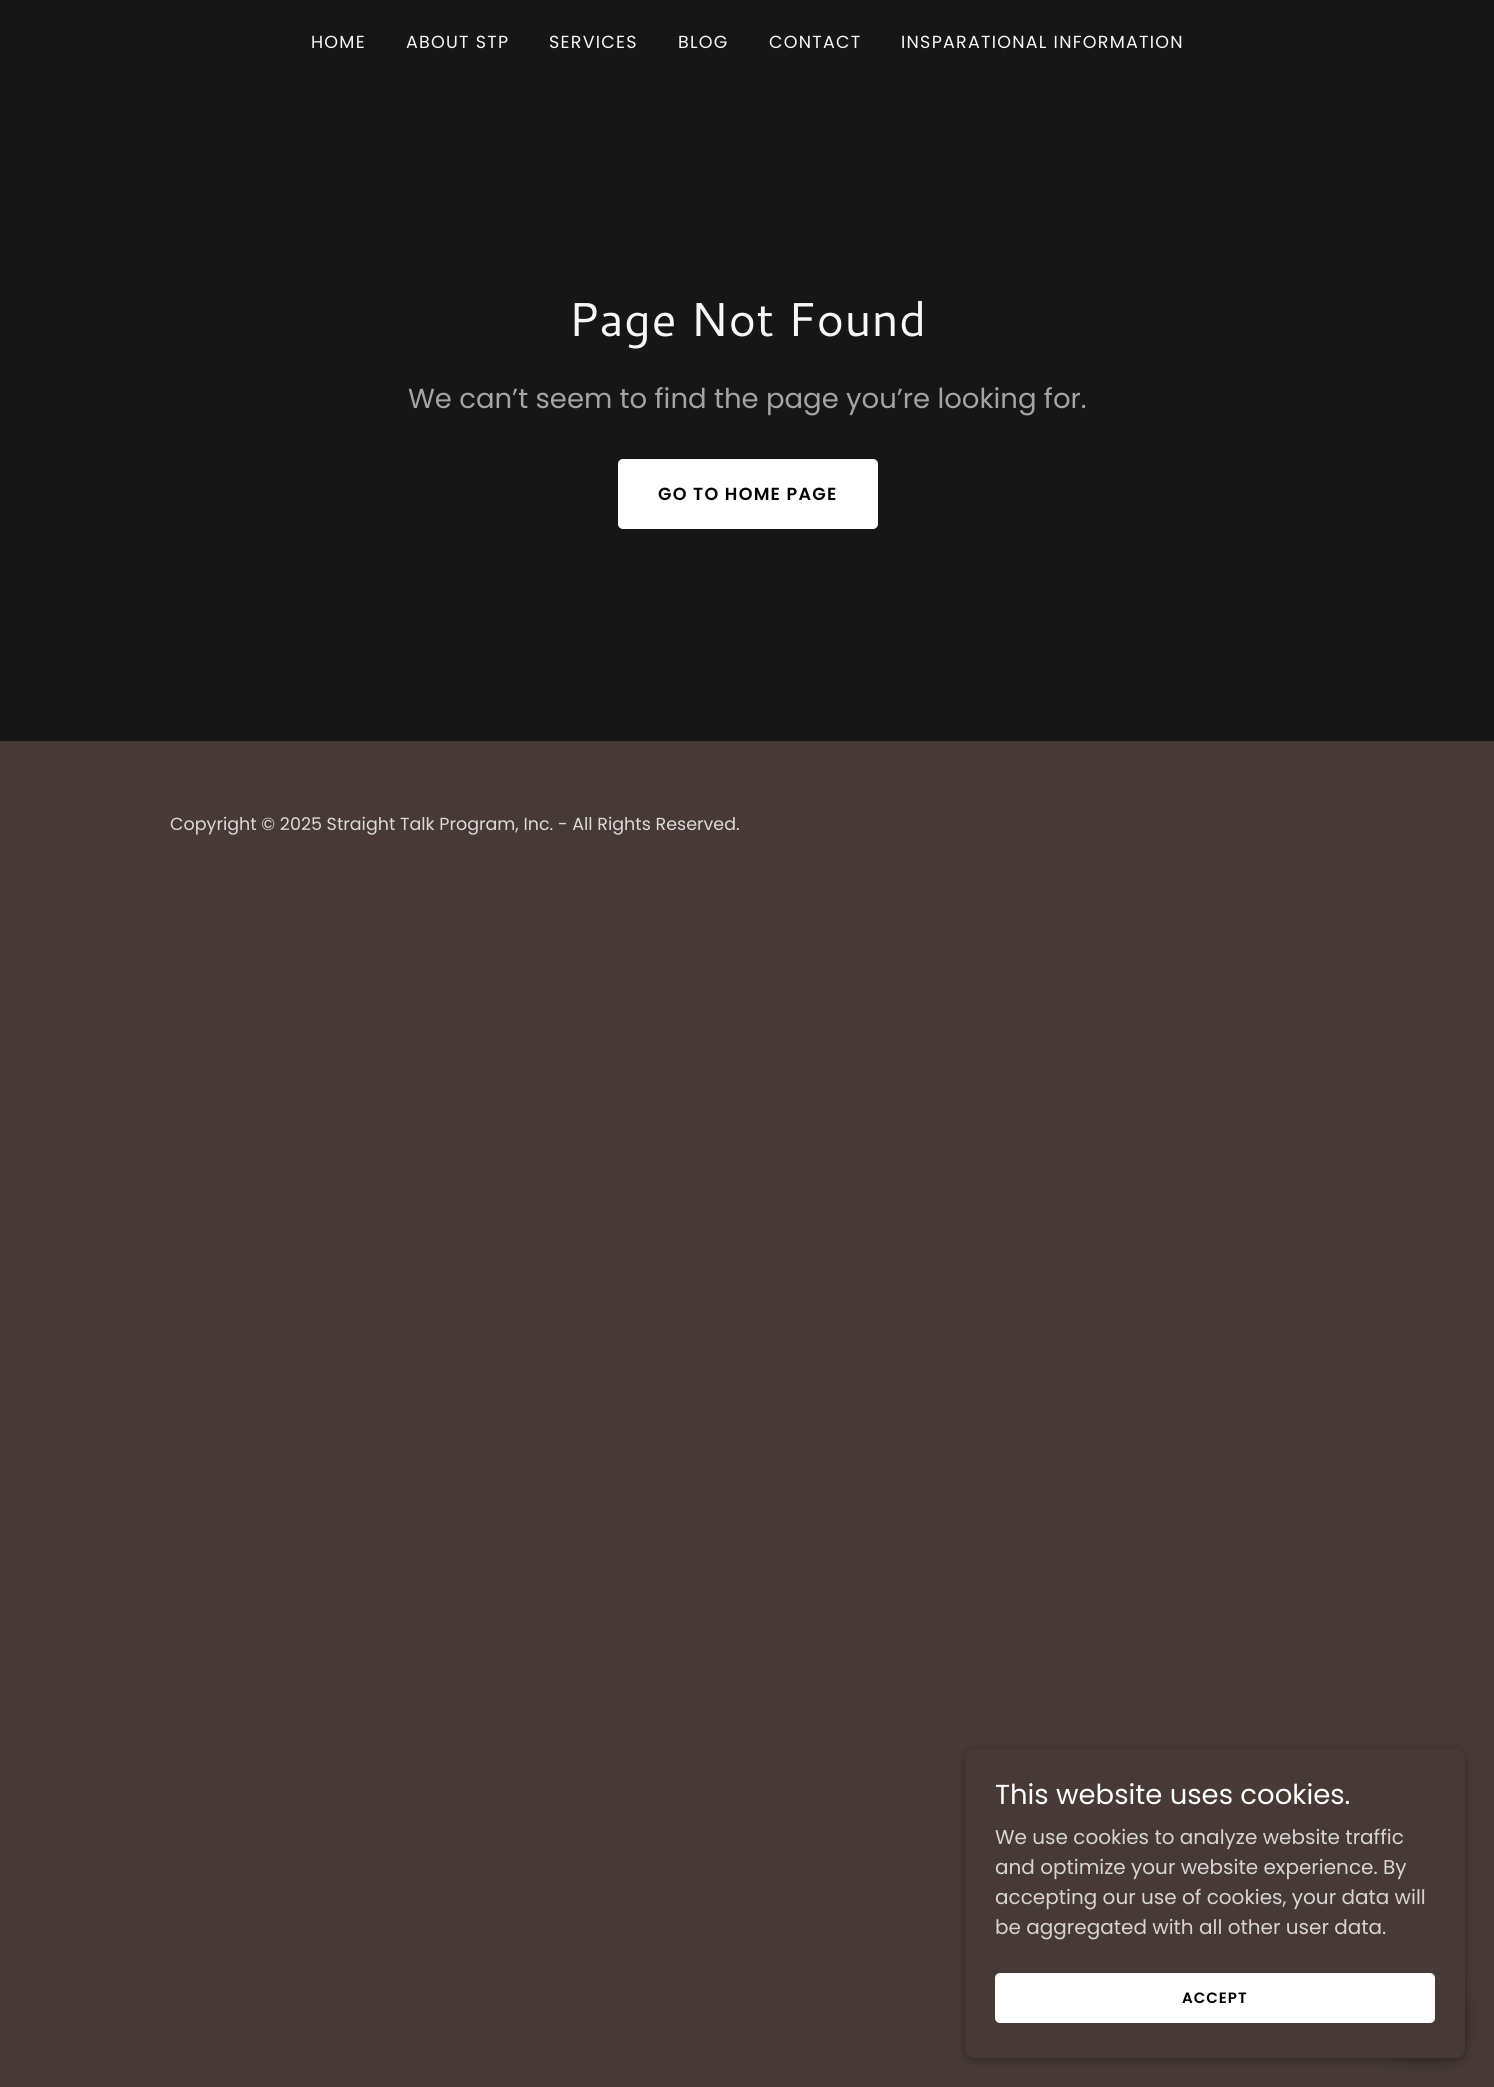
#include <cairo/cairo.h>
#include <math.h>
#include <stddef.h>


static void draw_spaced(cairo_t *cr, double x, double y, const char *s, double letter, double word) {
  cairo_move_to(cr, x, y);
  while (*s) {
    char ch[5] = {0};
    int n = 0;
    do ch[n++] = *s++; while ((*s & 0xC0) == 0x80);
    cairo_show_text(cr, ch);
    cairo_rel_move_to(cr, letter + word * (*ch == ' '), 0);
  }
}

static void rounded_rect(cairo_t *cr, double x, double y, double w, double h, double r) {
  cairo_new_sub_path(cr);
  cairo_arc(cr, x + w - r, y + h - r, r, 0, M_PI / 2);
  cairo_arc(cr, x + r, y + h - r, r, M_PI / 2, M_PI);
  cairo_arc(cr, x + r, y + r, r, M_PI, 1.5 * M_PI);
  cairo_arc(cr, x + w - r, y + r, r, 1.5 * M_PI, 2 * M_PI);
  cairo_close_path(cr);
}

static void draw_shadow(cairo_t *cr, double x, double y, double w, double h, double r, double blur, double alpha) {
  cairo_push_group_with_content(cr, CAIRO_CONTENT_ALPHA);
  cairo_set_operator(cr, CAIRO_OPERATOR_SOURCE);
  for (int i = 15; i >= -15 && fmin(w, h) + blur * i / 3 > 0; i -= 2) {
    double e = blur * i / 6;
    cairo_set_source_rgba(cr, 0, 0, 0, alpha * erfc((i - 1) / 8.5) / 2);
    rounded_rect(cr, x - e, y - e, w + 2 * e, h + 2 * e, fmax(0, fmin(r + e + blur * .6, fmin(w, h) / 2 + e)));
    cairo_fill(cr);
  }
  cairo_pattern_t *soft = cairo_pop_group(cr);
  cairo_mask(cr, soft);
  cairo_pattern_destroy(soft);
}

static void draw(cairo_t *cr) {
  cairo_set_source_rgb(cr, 71 / 255.0, 57 / 255.0, 53 / 255.0);
  cairo_paint(cr);
  cairo_set_source_rgb(cr, 22 / 255.0, 22 / 255.0, 22 / 255.0);
  cairo_rectangle(cr, 0, 0, 1494, 741);
  cairo_fill(cr);
  cairo_set_source_rgb(cr, 1, 1, 1);
  rounded_rect(cr, 618, 459, 260, 70, 5);
  cairo_fill(cr);
  cairo_set_source_rgb(cr, 0, 0, 0);
  draw_shadow(cr, 965, 1751, 500, 309, 9, 4, 0.3);
  draw_shadow(cr, 1384, 1980, 81, 81, 40.5, 11, 0.25);
  cairo_set_source_rgb(cr, 71 / 255.0, 57 / 255.0, 53 / 255.0);
  rounded_rect(cr, 965, 1749, 500, 309, 9);
  cairo_fill(cr);
  cairo_set_source_rgb(cr, 1, 1, 1);
  rounded_rect(cr, 995, 1973, 440, 50, 5);
  cairo_fill(cr);
  cairo_select_font_face(cr, "Poppins", CAIRO_FONT_SLANT_NORMAL, CAIRO_FONT_WEIGHT_NORMAL);
  cairo_set_font_size(cr, 17.5);
  cairo_set_source_rgb(cr, 247 / 255.0, 247 / 255.0, 247 / 255.0);
  draw_spaced(cr, 311, 48, "HOME", 1.25, 0);
  draw_spaced(cr, 406, 48, "ABOUT STP", 1.25, 0);
  draw_spaced(cr, 549, 48, "SERVICES", 1.25, 0);
  draw_spaced(cr, 678, 48, "BLOG", 1.25, 0);
  draw_spaced(cr, 769, 48, "CONTACT", 1.25, 0);
  draw_spaced(cr, 901, 48, "INSPARATIONAL INFORMATION", 1.25, 0);
  cairo_select_font_face(cr, "Cantarell", CAIRO_FONT_SLANT_NORMAL, CAIRO_FONT_WEIGHT_NORMAL);
  cairo_set_font_size(cr, 47.5);
  cairo_move_to(cr, 568, 336);
  cairo_show_text(cr, "Page Not Found");
  cairo_select_font_face(cr, "Poppins", CAIRO_FONT_SLANT_NORMAL, CAIRO_FONT_WEIGHT_NORMAL);
  cairo_set_font_size(cr, 27.5);
  cairo_set_source_rgb(cr, 164 / 255.0, 164 / 255.0, 164 / 255.0);
  cairo_move_to(cr, 408, 408);
  cairo_show_text(cr, "We can’t seem to find the page you’re looking for.");
  cairo_select_font_face(cr, "Poppins SemiBold", CAIRO_FONT_SLANT_NORMAL, CAIRO_FONT_WEIGHT_NORMAL);
  cairo_set_font_size(cr, 17.5);
  cairo_set_source_rgb(cr, 0, 0, 0);
  draw_spaced(cr, 658, 500, "GO TO HOME PAGE", 1.25, 0);
  cairo_select_font_face(cr, "Poppins", CAIRO_FONT_SLANT_NORMAL, CAIRO_FONT_WEIGHT_NORMAL);
  cairo_set_source_rgb(cr, 220 / 255.0, 218 / 255.0, 218 / 255.0);
  cairo_move_to(cr, 170, 830);
  cairo_show_text(cr, "Copyright © 2025 Straight Talk Program, Inc. - All Rights Reserved.");
  cairo_set_font_size(cr, 27.5);
  cairo_set_source_rgb(cr, 1, 1, 1);
  cairo_move_to(cr, 995, 1804);
  cairo_show_text(cr, "This website uses cookies.");
  cairo_set_font_size(cr, 20);
  cairo_set_source_rgb(cr, 215 / 255.0, 213 / 255.0, 212 / 255.0);
  cairo_move_to(cr, 995, 1844);
  cairo_show_text(cr, "We use cookies to analyze website traffic");
  cairo_move_to(cr, 995, 1874);
  cairo_show_text(cr, "and optimize your website experience. By");
  cairo_move_to(cr, 995, 1904);
  cairo_show_text(cr, "accepting our use of cookies, your data will");
  cairo_move_to(cr, 995, 1934);
  cairo_show_text(cr, "be aggregated with all other user data.");
  cairo_select_font_face(cr, "Poppins SemiBold", CAIRO_FONT_SLANT_NORMAL, CAIRO_FONT_WEIGHT_NORMAL);
  cairo_set_font_size(cr, 15);
  cairo_set_source_rgb(cr, 0, 0, 0);
  draw_spaced(cr, 1182, 2003, "ACCEPT", 1, 0);
}

int main(void) {
  cairo_surface_t *surface = cairo_image_surface_create(CAIRO_FORMAT_RGB24, 1494, 2087);
  cairo_t *cr = cairo_create(surface);
  cairo_font_options_t *options = cairo_font_options_create();
  cairo_font_options_set_hint_metrics(options, CAIRO_HINT_METRICS_OFF);
  cairo_font_options_set_hint_style(options, CAIRO_HINT_STYLE_NONE);
  cairo_set_font_options(cr, options);
  cairo_set_miter_limit(cr, 4);
  draw(cr);
  cairo_surface_write_to_png(surface, "out.png");
  cairo_font_options_destroy(options);
  cairo_destroy(cr);
  cairo_surface_destroy(surface);
  return 0;
}
